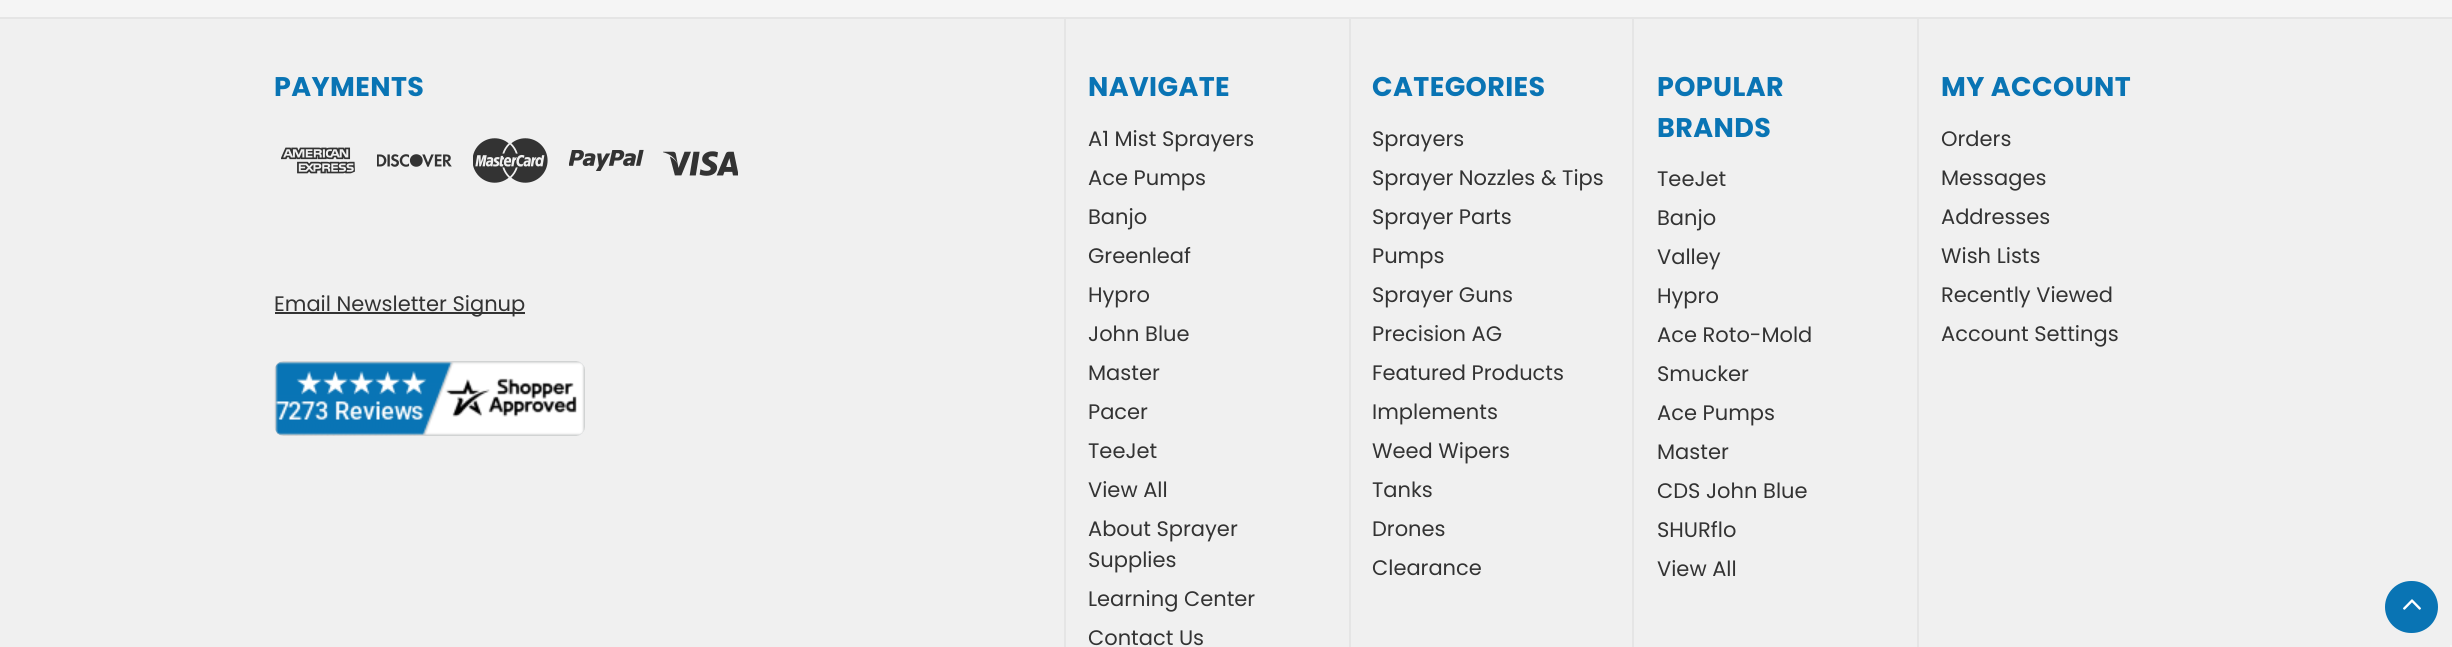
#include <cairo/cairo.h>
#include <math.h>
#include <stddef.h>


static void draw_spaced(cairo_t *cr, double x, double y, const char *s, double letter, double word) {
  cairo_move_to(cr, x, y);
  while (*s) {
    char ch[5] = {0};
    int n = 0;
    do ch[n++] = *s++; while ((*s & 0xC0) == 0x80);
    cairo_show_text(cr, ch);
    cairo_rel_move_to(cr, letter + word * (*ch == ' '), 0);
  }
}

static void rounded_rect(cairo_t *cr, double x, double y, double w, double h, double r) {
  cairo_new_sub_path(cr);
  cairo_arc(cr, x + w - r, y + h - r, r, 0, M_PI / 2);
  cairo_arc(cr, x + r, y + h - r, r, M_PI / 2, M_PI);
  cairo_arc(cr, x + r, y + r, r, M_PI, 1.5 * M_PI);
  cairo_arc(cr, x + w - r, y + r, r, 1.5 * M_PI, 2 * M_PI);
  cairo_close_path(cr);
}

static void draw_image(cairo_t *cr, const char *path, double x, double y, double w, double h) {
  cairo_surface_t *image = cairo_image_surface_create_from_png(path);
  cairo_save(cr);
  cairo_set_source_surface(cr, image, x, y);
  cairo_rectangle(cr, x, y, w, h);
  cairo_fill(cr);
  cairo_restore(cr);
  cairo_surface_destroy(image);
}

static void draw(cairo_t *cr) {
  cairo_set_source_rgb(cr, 245 / 255.0, 245 / 255.0, 245 / 255.0);
  cairo_paint(cr);
  cairo_set_source_rgb(cr, 240 / 255.0, 240 / 255.0, 240 / 255.0);
  cairo_rectangle(cr, 0, 19, 2452, 628);
  cairo_fill(cr);
  cairo_set_source_rgb(cr, 229 / 255.0, 229 / 255.0, 229 / 255.0);
  cairo_rectangle(cr, 0, 17, 2452, 2);
  cairo_fill(cr);
  draw_image(cr, "images/1.png", 281, 147, 74, 27);
  draw_image(cr, "images/2.png", 377, 154, 75, 13);
  draw_image(cr, "images/3.png", 473, 138, 75, 45);
  draw_image(cr, "images/4.png", 569, 149, 75, 22);
  draw_image(cr, "images/5.png", 663, 151, 75, 25);
  cairo_set_source_rgb(cr, 51 / 255.0, 51 / 255.0, 51 / 255.0);
  cairo_rectangle(cr, 275, 312, 250, 2);
  cairo_fill(cr);
  draw_image(cr, "images/6.png", 274, 361, 311, 75);
  cairo_set_source_rgb(cr, 229 / 255.0, 229 / 255.0, 229 / 255.0);
  cairo_rectangle(cr, 1349, 18, 2, 629);
  cairo_fill(cr);
  cairo_rectangle(cr, 1064, 18, 2, 629);
  cairo_fill(cr);
  cairo_rectangle(cr, 1632, 18, 2, 629);
  cairo_fill(cr);
  cairo_rectangle(cr, 1917, 18, 2, 629);
  cairo_fill(cr);
  cairo_set_source_rgb(cr, 9 / 255.0, 116 / 255.0, 180 / 255.0);
  rounded_rect(cr, 2385, 581, 53, 52, 26);
  cairo_fill(cr);
  draw_image(cr, "images/7.png", 2403, 599, 18, 11);
  cairo_set_source_rgb(cr, 245 / 255.0, 245 / 255.0, 245 / 255.0);
  cairo_rectangle(cr, 2450, 645, 2, 2);
  cairo_fill(cr);
  cairo_select_font_face(cr, "Poppins", CAIRO_FONT_SLANT_NORMAL, CAIRO_FONT_WEIGHT_BOLD);
  cairo_set_font_size(cr, 27);
  cairo_set_source_rgb(cr, 9 / 255.0, 116 / 255.0, 180 / 255.0);
  draw_spaced(cr, 274, 96, "PAYMENTS", 0.4, 0);
  cairo_select_font_face(cr, "Poppins", CAIRO_FONT_SLANT_NORMAL, CAIRO_FONT_WEIGHT_NORMAL);
  cairo_set_font_size(cr, 21);
  cairo_set_source_rgb(cr, 51 / 255.0, 51 / 255.0, 51 / 255.0);
  cairo_move_to(cr, 274, 311);
  cairo_show_text(cr, "Email Newsletter Signup");
  cairo_select_font_face(cr, "Poppins", CAIRO_FONT_SLANT_NORMAL, CAIRO_FONT_WEIGHT_BOLD);
  cairo_set_font_size(cr, 27);
  cairo_set_source_rgb(cr, 9 / 255.0, 116 / 255.0, 180 / 255.0);
  draw_spaced(cr, 1088, 96, "NAVIGATE", 0.4, 0);
  cairo_select_font_face(cr, "Poppins", CAIRO_FONT_SLANT_NORMAL, CAIRO_FONT_WEIGHT_NORMAL);
  cairo_set_font_size(cr, 21);
  cairo_set_source_rgb(cr, 51 / 255.0, 51 / 255.0, 51 / 255.0);
  cairo_move_to(cr, 1088, 146);
  cairo_show_text(cr, "A1 Mist Sprayers");
  cairo_move_to(cr, 1088, 185);
  cairo_show_text(cr, "Ace Pumps");
  cairo_move_to(cr, 1088, 224);
  cairo_show_text(cr, "Banjo");
  cairo_move_to(cr, 1088, 263);
  cairo_show_text(cr, "Greenleaf");
  cairo_move_to(cr, 1088, 302);
  cairo_show_text(cr, "Hypro");
  cairo_move_to(cr, 1088, 341);
  cairo_show_text(cr, "John Blue");
  cairo_move_to(cr, 1088, 380);
  cairo_show_text(cr, "Master");
  cairo_move_to(cr, 1088, 419);
  cairo_show_text(cr, "Pacer");
  cairo_move_to(cr, 1088, 458);
  cairo_show_text(cr, "TeeJet");
  cairo_move_to(cr, 1088, 497);
  cairo_show_text(cr, "View All");
  cairo_move_to(cr, 1088, 536);
  cairo_show_text(cr, "About Sprayer");
  cairo_move_to(cr, 1088, 567);
  cairo_show_text(cr, "Supplies");
  cairo_move_to(cr, 1088, 606);
  cairo_show_text(cr, "Learning Center");
  cairo_move_to(cr, 1088, 645);
  cairo_show_text(cr, "Contact Us");
  cairo_select_font_face(cr, "Poppins", CAIRO_FONT_SLANT_NORMAL, CAIRO_FONT_WEIGHT_BOLD);
  cairo_set_font_size(cr, 27);
  cairo_set_source_rgb(cr, 9 / 255.0, 116 / 255.0, 180 / 255.0);
  draw_spaced(cr, 1372, 96, "CATEGORIES", 0.4, 0);
  cairo_select_font_face(cr, "Poppins", CAIRO_FONT_SLANT_NORMAL, CAIRO_FONT_WEIGHT_NORMAL);
  cairo_set_font_size(cr, 21);
  cairo_set_source_rgb(cr, 51 / 255.0, 51 / 255.0, 51 / 255.0);
  cairo_move_to(cr, 1372, 146);
  cairo_show_text(cr, "Sprayers");
  cairo_move_to(cr, 1372, 185);
  cairo_show_text(cr, "Sprayer Nozzles & Tips");
  cairo_move_to(cr, 1372, 224);
  cairo_show_text(cr, "Sprayer Parts");
  cairo_move_to(cr, 1372, 263);
  cairo_show_text(cr, "Pumps");
  cairo_move_to(cr, 1372, 302);
  cairo_show_text(cr, "Sprayer Guns");
  cairo_move_to(cr, 1372, 341);
  cairo_show_text(cr, "Precision AG");
  cairo_move_to(cr, 1372, 380);
  cairo_show_text(cr, "Featured Products");
  cairo_move_to(cr, 1372, 419);
  cairo_show_text(cr, "Implements");
  cairo_move_to(cr, 1372, 458);
  cairo_show_text(cr, "Weed Wipers");
  cairo_move_to(cr, 1372, 497);
  cairo_show_text(cr, "Tanks");
  cairo_move_to(cr, 1372, 536);
  cairo_show_text(cr, "Drones");
  cairo_move_to(cr, 1372, 575);
  cairo_show_text(cr, "Clearance");
  cairo_select_font_face(cr, "Poppins", CAIRO_FONT_SLANT_NORMAL, CAIRO_FONT_WEIGHT_BOLD);
  cairo_set_font_size(cr, 27);
  cairo_set_source_rgb(cr, 9 / 255.0, 116 / 255.0, 180 / 255.0);
  draw_spaced(cr, 1657, 96, "POPULAR", 0.4, 0);
  draw_spaced(cr, 1657, 137, "BRANDS", 0.4, 0);
  cairo_select_font_face(cr, "Poppins", CAIRO_FONT_SLANT_NORMAL, CAIRO_FONT_WEIGHT_NORMAL);
  cairo_set_font_size(cr, 21);
  cairo_set_source_rgb(cr, 51 / 255.0, 51 / 255.0, 51 / 255.0);
  cairo_move_to(cr, 1657, 186);
  cairo_show_text(cr, "TeeJet");
  cairo_move_to(cr, 1657, 225);
  cairo_show_text(cr, "Banjo");
  cairo_move_to(cr, 1657, 264);
  cairo_show_text(cr, "Valley");
  cairo_move_to(cr, 1657, 303);
  cairo_show_text(cr, "Hypro");
  cairo_move_to(cr, 1657, 342);
  cairo_show_text(cr, "Ace Roto-Mold");
  cairo_move_to(cr, 1657, 381);
  cairo_show_text(cr, "Smucker");
  cairo_move_to(cr, 1657, 420);
  cairo_show_text(cr, "Ace Pumps");
  cairo_move_to(cr, 1657, 459);
  cairo_show_text(cr, "Master");
  cairo_move_to(cr, 1657, 498);
  cairo_show_text(cr, "CDS John Blue");
  cairo_move_to(cr, 1657, 537);
  cairo_show_text(cr, "SHURflo");
  cairo_move_to(cr, 1657, 576);
  cairo_show_text(cr, "View All");
  cairo_select_font_face(cr, "Poppins", CAIRO_FONT_SLANT_NORMAL, CAIRO_FONT_WEIGHT_BOLD);
  cairo_set_font_size(cr, 27);
  cairo_set_source_rgb(cr, 9 / 255.0, 116 / 255.0, 180 / 255.0);
  draw_spaced(cr, 1941, 96, "MY ACCOUNT", 0.4, 0);
  cairo_select_font_face(cr, "Poppins", CAIRO_FONT_SLANT_NORMAL, CAIRO_FONT_WEIGHT_NORMAL);
  cairo_set_font_size(cr, 21);
  cairo_set_source_rgb(cr, 51 / 255.0, 51 / 255.0, 51 / 255.0);
  cairo_move_to(cr, 1941, 146);
  cairo_show_text(cr, "Orders");
  cairo_move_to(cr, 1941, 185);
  cairo_show_text(cr, "Messages");
  cairo_move_to(cr, 1941, 224);
  cairo_show_text(cr, "Addresses");
  cairo_move_to(cr, 1941, 263);
  cairo_show_text(cr, "Wish Lists");
  cairo_move_to(cr, 1941, 302);
  cairo_show_text(cr, "Recently Viewed");
  cairo_move_to(cr, 1941, 341);
  cairo_show_text(cr, "Account Settings");
}

int main(void) {
  cairo_surface_t *surface = cairo_image_surface_create(CAIRO_FORMAT_RGB24, 2452, 647);
  cairo_t *cr = cairo_create(surface);
  cairo_font_options_t *options = cairo_font_options_create();
  cairo_font_options_set_hint_metrics(options, CAIRO_HINT_METRICS_OFF);
  cairo_font_options_set_hint_style(options, CAIRO_HINT_STYLE_NONE);
  cairo_set_font_options(cr, options);
  cairo_set_miter_limit(cr, 4);
  draw(cr);
  cairo_surface_write_to_png(surface, "out.png");
  cairo_font_options_destroy(options);
  cairo_destroy(cr);
  cairo_surface_destroy(surface);
  return 0;
}
